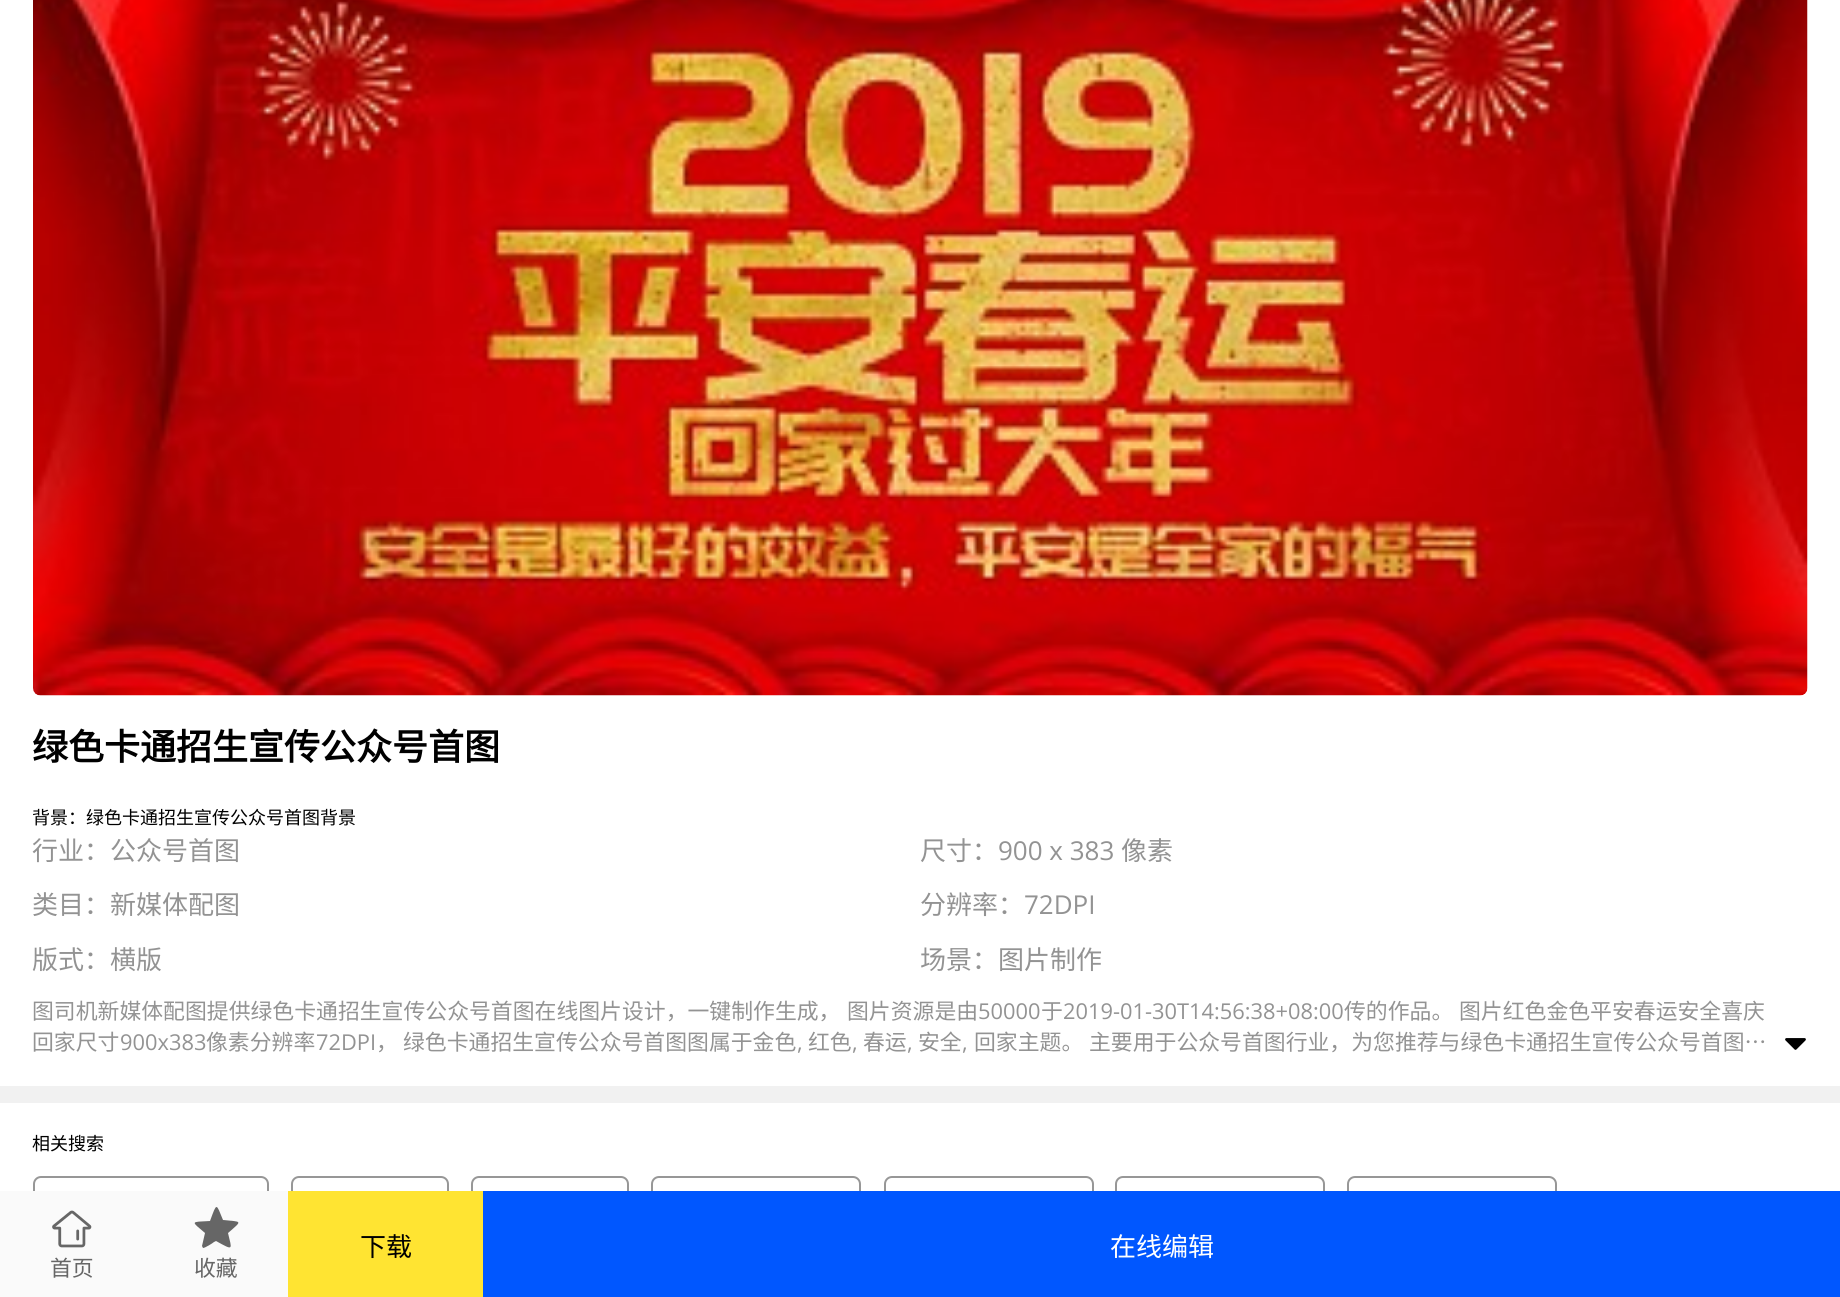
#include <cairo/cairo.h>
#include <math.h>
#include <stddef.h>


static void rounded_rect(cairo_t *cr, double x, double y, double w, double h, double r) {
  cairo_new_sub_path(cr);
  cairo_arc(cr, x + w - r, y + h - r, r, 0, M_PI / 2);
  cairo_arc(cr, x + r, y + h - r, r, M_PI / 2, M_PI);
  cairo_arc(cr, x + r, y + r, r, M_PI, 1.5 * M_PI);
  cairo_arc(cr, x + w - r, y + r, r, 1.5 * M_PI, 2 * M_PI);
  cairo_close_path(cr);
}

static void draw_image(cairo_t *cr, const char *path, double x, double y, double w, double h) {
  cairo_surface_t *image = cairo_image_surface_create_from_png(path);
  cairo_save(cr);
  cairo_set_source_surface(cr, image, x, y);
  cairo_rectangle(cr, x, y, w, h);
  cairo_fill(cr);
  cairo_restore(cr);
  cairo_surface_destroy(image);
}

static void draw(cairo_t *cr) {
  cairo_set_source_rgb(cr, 241 / 255.0, 241 / 255.0, 241 / 255.0);
  cairo_paint(cr);
  cairo_set_source_rgb(cr, 1, 1, 1);
  cairo_rectangle(cr, 0, 0, 1840, 1086);
  cairo_fill(cr);
  draw_image(cr, "images/1.png", 33, 0, 1775, 696);
  draw_image(cr, "images/2.png", 1785, 1038, 21, 12);
  cairo_rectangle(cr, 0, 1103, 1840, 88);
  cairo_fill(cr);
  rounded_rect(cr, 34, 1177, 234, 48, 7);
  cairo_set_source_rgb(cr, 151 / 255.0, 151 / 255.0, 151 / 255.0);
  cairo_stroke(cr);
  rounded_rect(cr, 292, 1177, 156, 48, 7);
  cairo_stroke(cr);
  rounded_rect(cr, 472, 1177, 156, 48, 7);
  cairo_stroke(cr);
  rounded_rect(cr, 652, 1177, 208, 48, 7);
  cairo_stroke(cr);
  rounded_rect(cr, 885, 1177, 208, 48, 7);
  cairo_stroke(cr);
  rounded_rect(cr, 1116, 1177, 208, 48, 7);
  cairo_stroke(cr);
  rounded_rect(cr, 1348, 1177, 208, 48, 7);
  cairo_stroke(cr);
  cairo_set_source_rgb(cr, 250 / 255.0, 250 / 255.0, 250 / 255.0);
  cairo_rectangle(cr, 0, 1191, 288, 106);
  cairo_fill(cr);
  cairo_set_source_rgb(cr, 1, 228 / 255.0, 50 / 255.0);
  cairo_rectangle(cr, 288, 1191, 195, 106);
  cairo_fill(cr);
  cairo_set_source_rgb(cr, 0, 87 / 255.0, 1);
  cairo_rectangle(cr, 483, 1191, 1357, 106);
  cairo_fill(cr);
  draw_image(cr, "images/3.png", 52, 1210, 40, 38);
  cairo_set_source_rgb(cr, 102 / 255.0, 102 / 255.0, 102 / 255.0);
  cairo_new_path(cr);
  cairo_move_to(cr, 228, 1233);
  cairo_curve_to(cr, 232, 1250, 234, 1251, 216, 1241);
  cairo_line_to(cr, 214, 1242);
  cairo_curve_to(cr, 213, 1243, 205, 1248, 203, 1248);
  cairo_line_to(cr, 202, 1246);
  cairo_line_to(cr, 205, 1233);
  cairo_curve_to(cr, 191, 1221, 190, 1222, 210, 1221);
  cairo_curve_to(cr, 217, 1202, 216, 1203, 223, 1220);
  cairo_curve_to(cr, 242, 1222, 243, 1220, 228, 1233);
  cairo_close_path(cr);
  cairo_fill(cr);
  cairo_select_font_face(cr, "Noto Sans CJK SC", CAIRO_FONT_SLANT_NORMAL, CAIRO_FONT_WEIGHT_BOLD);
  cairo_set_font_size(cr, 36);
  cairo_set_source_rgb(cr, 0, 0, 0);
  cairo_move_to(cr, 32, 760);
  cairo_show_text(cr, "绿色卡通招生宣传公众号首图");
  cairo_select_font_face(cr, "Noto Sans CJK SC", CAIRO_FONT_SLANT_NORMAL, CAIRO_FONT_WEIGHT_NORMAL);
  cairo_set_font_size(cr, 18);
  cairo_move_to(cr, 32, 824);
  cairo_show_text(cr, "背景：绿色卡通招生宣传公众号首图背景");
  cairo_set_font_size(cr, 26);
  cairo_set_source_rgb(cr, 147 / 255.0, 147 / 255.0, 147 / 255.0);
  cairo_move_to(cr, 32, 860);
  cairo_show_text(cr, "行业：公众号首图");
  cairo_move_to(cr, 920, 860);
  cairo_show_text(cr, "尺寸：");
  cairo_select_font_face(cr, "Open Sans", CAIRO_FONT_SLANT_NORMAL, CAIRO_FONT_WEIGHT_NORMAL);
  cairo_move_to(cr, 998, 860);
  cairo_show_text(cr, "900 x 383");
  cairo_select_font_face(cr, "Noto Sans CJK SC", CAIRO_FONT_SLANT_NORMAL, CAIRO_FONT_WEIGHT_NORMAL);
  cairo_move_to(cr, 1121, 860);
  cairo_show_text(cr, "像素");
  cairo_move_to(cr, 32, 914);
  cairo_show_text(cr, "类目：新媒体配图");
  cairo_move_to(cr, 920, 914);
  cairo_show_text(cr, "分辨率：");
  cairo_select_font_face(cr, "Open Sans", CAIRO_FONT_SLANT_NORMAL, CAIRO_FONT_WEIGHT_NORMAL);
  cairo_move_to(cr, 1024, 914);
  cairo_show_text(cr, "72DPI");
  cairo_select_font_face(cr, "Noto Sans CJK SC", CAIRO_FONT_SLANT_NORMAL, CAIRO_FONT_WEIGHT_NORMAL);
  cairo_move_to(cr, 32, 969);
  cairo_show_text(cr, "版式：横版");
  cairo_move_to(cr, 920, 969);
  cairo_show_text(cr, "场景：图片制作");
  cairo_set_font_size(cr, 21.85);
  cairo_move_to(cr, 32, 1019);
  cairo_show_text(cr, "图司机新媒体配图提供绿色卡通招生宣传公众号首图在线图片设计，一键制作生成，");
  cairo_move_to(cr, 847, 1019);
  cairo_show_text(cr, "图片资源是由");
  cairo_select_font_face(cr, "Open Sans", CAIRO_FONT_SLANT_NORMAL, CAIRO_FONT_WEIGHT_NORMAL);
  cairo_move_to(cr, 978, 1019);
  cairo_show_text(cr, "50000");
  cairo_select_font_face(cr, "Noto Sans CJK SC", CAIRO_FONT_SLANT_NORMAL, CAIRO_FONT_WEIGHT_NORMAL);
  cairo_move_to(cr, 1041, 1019);
  cairo_show_text(cr, "于");
  cairo_select_font_face(cr, "Open Sans", CAIRO_FONT_SLANT_NORMAL, CAIRO_FONT_WEIGHT_NORMAL);
  cairo_move_to(cr, 1063, 1019);
  cairo_show_text(cr, "2019-01-30T14:56:38+08:00");
  cairo_select_font_face(cr, "Noto Sans CJK SC", CAIRO_FONT_SLANT_NORMAL, CAIRO_FONT_WEIGHT_NORMAL);
  cairo_move_to(cr, 1344, 1019);
  cairo_show_text(cr, "传的作品。");
  cairo_move_to(cr, 1459, 1019);
  cairo_show_text(cr, "图片红色金色平安春运安全喜庆");
  cairo_move_to(cr, 32, 1050);
  cairo_show_text(cr, "回家尺寸");
  cairo_select_font_face(cr, "Open Sans", CAIRO_FONT_SLANT_NORMAL, CAIRO_FONT_WEIGHT_NORMAL);
  cairo_move_to(cr, 120, 1050);
  cairo_show_text(cr, "900x383");
  cairo_select_font_face(cr, "Noto Sans CJK SC", CAIRO_FONT_SLANT_NORMAL, CAIRO_FONT_WEIGHT_NORMAL);
  cairo_move_to(cr, 206, 1050);
  cairo_show_text(cr, "像素分辨率");
  cairo_select_font_face(cr, "Open Sans", CAIRO_FONT_SLANT_NORMAL, CAIRO_FONT_WEIGHT_NORMAL);
  cairo_move_to(cr, 316, 1050);
  cairo_show_text(cr, "72DPI");
  cairo_select_font_face(cr, "Noto Sans CJK SC", CAIRO_FONT_SLANT_NORMAL, CAIRO_FONT_WEIGHT_NORMAL);
  cairo_move_to(cr, 376, 1050);
  cairo_show_text(cr, "，");
  cairo_move_to(cr, 403, 1050);
  cairo_show_text(cr, "绿色卡通招生宣传公众号首图图属于金色");
  cairo_select_font_face(cr, "Open Sans", CAIRO_FONT_SLANT_NORMAL, CAIRO_FONT_WEIGHT_NORMAL);
  cairo_move_to(cr, 797, 1050);
  cairo_show_text(cr, ",");
  cairo_select_font_face(cr, "Noto Sans CJK SC", CAIRO_FONT_SLANT_NORMAL, CAIRO_FONT_WEIGHT_NORMAL);
  cairo_move_to(cr, 808, 1050);
  cairo_show_text(cr, "红色");
  cairo_select_font_face(cr, "Open Sans", CAIRO_FONT_SLANT_NORMAL, CAIRO_FONT_WEIGHT_NORMAL);
  cairo_move_to(cr, 852, 1050);
  cairo_show_text(cr, ",");
  cairo_select_font_face(cr, "Noto Sans CJK SC", CAIRO_FONT_SLANT_NORMAL, CAIRO_FONT_WEIGHT_NORMAL);
  cairo_move_to(cr, 863, 1050);
  cairo_show_text(cr, "春运");
  cairo_select_font_face(cr, "Open Sans", CAIRO_FONT_SLANT_NORMAL, CAIRO_FONT_WEIGHT_NORMAL);
  cairo_move_to(cr, 907, 1050);
  cairo_show_text(cr, ",");
  cairo_select_font_face(cr, "Noto Sans CJK SC", CAIRO_FONT_SLANT_NORMAL, CAIRO_FONT_WEIGHT_NORMAL);
  cairo_move_to(cr, 918, 1050);
  cairo_show_text(cr, "安全");
  cairo_select_font_face(cr, "Open Sans", CAIRO_FONT_SLANT_NORMAL, CAIRO_FONT_WEIGHT_NORMAL);
  cairo_move_to(cr, 962, 1050);
  cairo_show_text(cr, ",");
  cairo_select_font_face(cr, "Noto Sans CJK SC", CAIRO_FONT_SLANT_NORMAL, CAIRO_FONT_WEIGHT_NORMAL);
  cairo_move_to(cr, 974, 1050);
  cairo_show_text(cr, "回家主题。");
  cairo_move_to(cr, 1089, 1050);
  cairo_show_text(cr, "主要用于公众号首图行业，为您推荐与绿色卡通招生宣传公众号首图…");
  cairo_set_font_size(cr, 18);
  cairo_set_source_rgb(cr, 0, 0, 0);
  cairo_move_to(cr, 32, 1150);
  cairo_show_text(cr, "相关搜索");
  cairo_set_font_size(cr, 26);
  cairo_move_to(cr, 360, 1256);
  cairo_show_text(cr, "下载");
  cairo_set_source_rgb(cr, 1, 1, 1);
  cairo_move_to(cr, 1110, 1256);
  cairo_show_text(cr, "在线编辑");
  cairo_set_font_size(cr, 21.85);
  cairo_set_source_rgb(cr, 102 / 255.0, 102 / 255.0, 102 / 255.0);
  cairo_move_to(cr, 50, 1276);
  cairo_show_text(cr, "首页");
  cairo_move_to(cr, 194, 1276);
  cairo_show_text(cr, "收藏");
}

int main(void) {
  cairo_surface_t *surface = cairo_image_surface_create(CAIRO_FORMAT_RGB24, 1840, 1297);
  cairo_t *cr = cairo_create(surface);
  cairo_font_options_t *options = cairo_font_options_create();
  cairo_font_options_set_hint_metrics(options, CAIRO_HINT_METRICS_OFF);
  cairo_font_options_set_hint_style(options, CAIRO_HINT_STYLE_NONE);
  cairo_set_font_options(cr, options);
  cairo_set_miter_limit(cr, 4);
  draw(cr);
  cairo_surface_write_to_png(surface, "out.png");
  cairo_font_options_destroy(options);
  cairo_destroy(cr);
  cairo_surface_destroy(surface);
  return 0;
}
